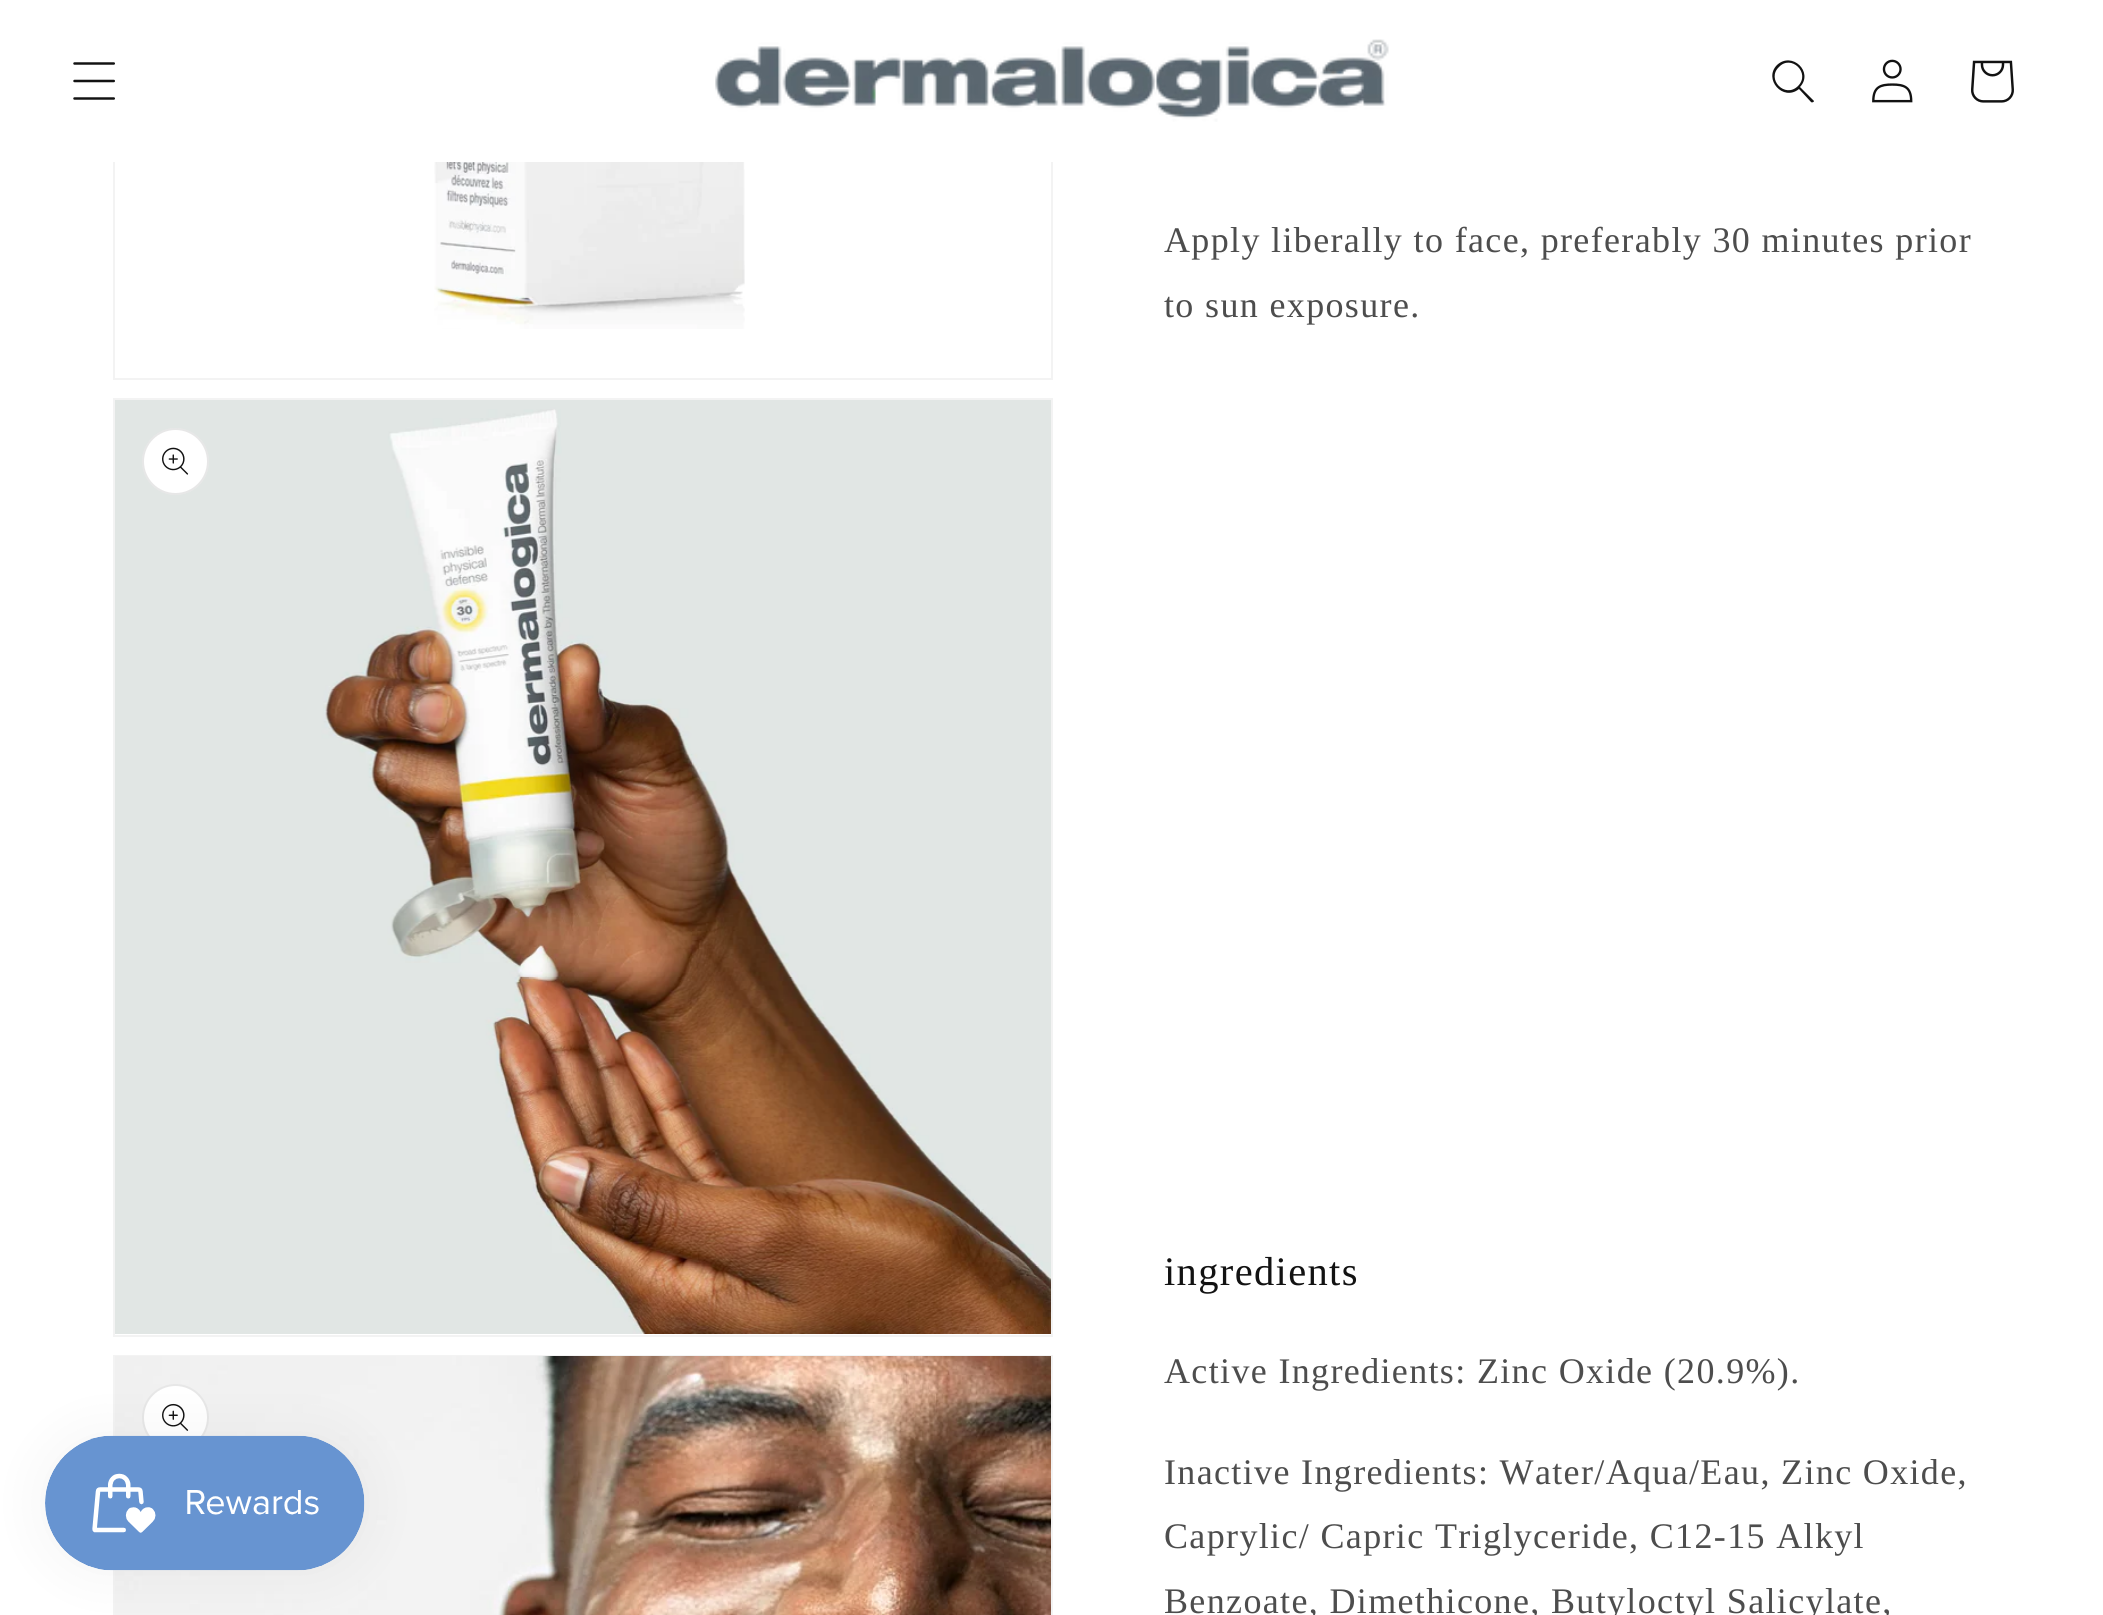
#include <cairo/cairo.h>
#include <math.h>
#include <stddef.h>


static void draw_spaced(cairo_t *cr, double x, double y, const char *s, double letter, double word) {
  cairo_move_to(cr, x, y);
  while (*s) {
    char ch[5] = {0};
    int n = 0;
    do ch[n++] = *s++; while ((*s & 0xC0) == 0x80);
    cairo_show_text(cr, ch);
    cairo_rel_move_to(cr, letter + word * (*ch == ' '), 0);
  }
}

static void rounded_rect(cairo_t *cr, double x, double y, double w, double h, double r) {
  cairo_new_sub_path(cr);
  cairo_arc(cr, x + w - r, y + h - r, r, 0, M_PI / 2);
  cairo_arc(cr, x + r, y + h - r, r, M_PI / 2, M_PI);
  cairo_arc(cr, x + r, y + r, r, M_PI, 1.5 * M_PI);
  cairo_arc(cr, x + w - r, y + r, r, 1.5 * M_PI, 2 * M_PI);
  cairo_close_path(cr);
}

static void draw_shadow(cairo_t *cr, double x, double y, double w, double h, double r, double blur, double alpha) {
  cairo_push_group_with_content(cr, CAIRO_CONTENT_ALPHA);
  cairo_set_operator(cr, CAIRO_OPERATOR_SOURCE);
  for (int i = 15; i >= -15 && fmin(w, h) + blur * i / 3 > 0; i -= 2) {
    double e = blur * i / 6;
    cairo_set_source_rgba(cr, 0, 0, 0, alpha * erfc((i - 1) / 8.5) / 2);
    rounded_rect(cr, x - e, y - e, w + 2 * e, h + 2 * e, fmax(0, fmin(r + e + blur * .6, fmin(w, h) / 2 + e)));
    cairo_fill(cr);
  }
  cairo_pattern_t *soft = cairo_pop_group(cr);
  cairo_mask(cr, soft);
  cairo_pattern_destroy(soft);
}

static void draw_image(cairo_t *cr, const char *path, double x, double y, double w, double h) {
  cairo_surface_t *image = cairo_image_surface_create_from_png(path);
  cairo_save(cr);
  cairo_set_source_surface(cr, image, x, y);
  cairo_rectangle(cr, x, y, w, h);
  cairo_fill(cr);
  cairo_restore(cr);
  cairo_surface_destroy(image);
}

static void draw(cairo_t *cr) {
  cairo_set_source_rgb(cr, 1, 1, 1);
  cairo_paint(cr);
  cairo_rectangle(cr, 114, -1, 938, 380);
  cairo_set_source_rgb(cr, 243 / 255.0, 243 / 255.0, 243 / 255.0);
  cairo_stroke(cr);
  cairo_set_source_rgb(cr, 1, 1, 1);
  cairo_rectangle(cr, 113, 0, 940, 162);
  cairo_fill(cr);
  draw_image(cr, "images/1.png", 73, 62, 42, 38);
  draw_image(cr, "images/2.png", 715, 39, 674, 83);
  cairo_set_source_rgb(cr, 18 / 255.0, 18 / 255.0, 18 / 255.0);
  cairo_set_fill_rule(cr, CAIRO_FILL_RULE_EVEN_ODD);
  cairo_new_path(cr);
  cairo_move_to(cr, 1798, 86);
  cairo_curve_to(cr, 1785, 99, 1766, 79, 1779, 67);
  cairo_curve_to(cr, 1791, 54, 1811, 73, 1798, 86);
  cairo_move_to(cr, 1799, 89);
  cairo_curve_to(cr, 1783, 102, 1763, 79, 1777, 65);
  cairo_curve_to(cr, 1792, 51, 1814, 72, 1800, 87);
  cairo_line_to(cr, 1814, 101);
  cairo_curve_to(cr, 1814, 102, 1812, 103, 1811, 102);
  cairo_close_path(cr);
  cairo_fill(cr);
  draw_image(cr, "images/3.png", 1872, 59, 41, 44);
  draw_image(cr, "images/4.png", 1971, 60, 43, 43);
  cairo_rectangle(cr, 114, 1356, 938, 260);
  cairo_set_source_rgb(cr, 243 / 255.0, 243 / 255.0, 243 / 255.0);
  cairo_stroke(cr);
  draw_image(cr, "images/9.png", 115, 1356, 936, 259);
  cairo_set_source_rgb(cr, 1, 1, 1);
  cairo_arc(cr, 175.5, 1417.5, 33.5, 0, 2 * M_PI);
  cairo_fill(cr);
  cairo_arc(cr, 175.5, 1417.5, 32.5, 0, 2 * M_PI);
  cairo_set_source_rgba(cr, 18 / 255.0, 18 / 255.0, 18 / 255.0, 0.1);
  cairo_stroke(cr);
  draw_image(cr, "images/10.png", 162, 1403, 27, 28);
  cairo_set_source_rgb(cr, 0, 0, 0);
  draw_shadow(cr, 45, 1436, 320, 135, 67.5, 28, 0.05);
  draw_image(cr, "images/5.png", 45, 1435, 320, 136);
  draw_image(cr, "images/6.png", 434, 162, 311, 167);
  cairo_rectangle(cr, 114, 399, 938, 937);
  cairo_set_source_rgb(cr, 243 / 255.0, 243 / 255.0, 243 / 255.0);
  cairo_stroke(cr);
  draw_image(cr, "images/7.png", 115, 400, 936, 934);
  cairo_set_source_rgb(cr, 1, 1, 1);
  cairo_arc(cr, 175.5, 461.5, 33.5, 0, 2 * M_PI);
  cairo_fill(cr);
  cairo_arc(cr, 175.5, 461.5, 32.5, 0, 2 * M_PI);
  cairo_set_source_rgba(cr, 18 / 255.0, 18 / 255.0, 18 / 255.0, 0.1);
  cairo_stroke(cr);
  draw_image(cr, "images/8.png", 162, 447, 27, 28);
  cairo_select_font_face(cr, "Liberation Serif", CAIRO_FONT_SLANT_NORMAL, CAIRO_FONT_WEIGHT_NORMAL);
  cairo_set_font_size(cr, 36);
  cairo_set_source_rgb(cr, 77 / 255.0, 77 / 255.0, 77 / 255.0);
  draw_spaced(cr, 1164, 252, "Apply liberally to face, preferably 30 minutes prior", 1.35, 0);
  draw_spaced(cr, 1164, 317, "to sun exposure.", 1.35, 0);
  cairo_set_font_size(cr, 40.5);
  cairo_set_source_rgb(cr, 18 / 255.0, 18 / 255.0, 18 / 255.0);
  draw_spaced(cr, 1164, 1285, "ingredients", 1.35, 0);
  cairo_set_font_size(cr, 36);
  cairo_set_source_rgb(cr, 77 / 255.0, 77 / 255.0, 77 / 255.0);
  draw_spaced(cr, 1164, 1383, "Active Ingredients: Zinc Oxide (20.9%).", 1.35, 0);
  draw_spaced(cr, 1164, 1484, "Inactive Ingredients: Water/Aqua/Eau, Zinc Oxide,", 1.35, 0);
  draw_spaced(cr, 1164, 1548, "Caprylic/ Capric Triglyceride, C12-15 Alkyl", 1.35, 0);
  draw_spaced(cr, 1164, 1613, "Benzoate, Dimethicone, Butyloctyl Salicylate,", 1.35, 0);
}

int main(void) {
  cairo_surface_t *surface = cairo_image_surface_create(CAIRO_FORMAT_RGB24, 2103, 1615);
  cairo_t *cr = cairo_create(surface);
  cairo_font_options_t *options = cairo_font_options_create();
  cairo_font_options_set_hint_metrics(options, CAIRO_HINT_METRICS_OFF);
  cairo_font_options_set_hint_style(options, CAIRO_HINT_STYLE_NONE);
  cairo_set_font_options(cr, options);
  cairo_set_miter_limit(cr, 4);
  draw(cr);
  cairo_surface_write_to_png(surface, "out.png");
  cairo_font_options_destroy(options);
  cairo_destroy(cr);
  cairo_surface_destroy(surface);
  return 0;
}
